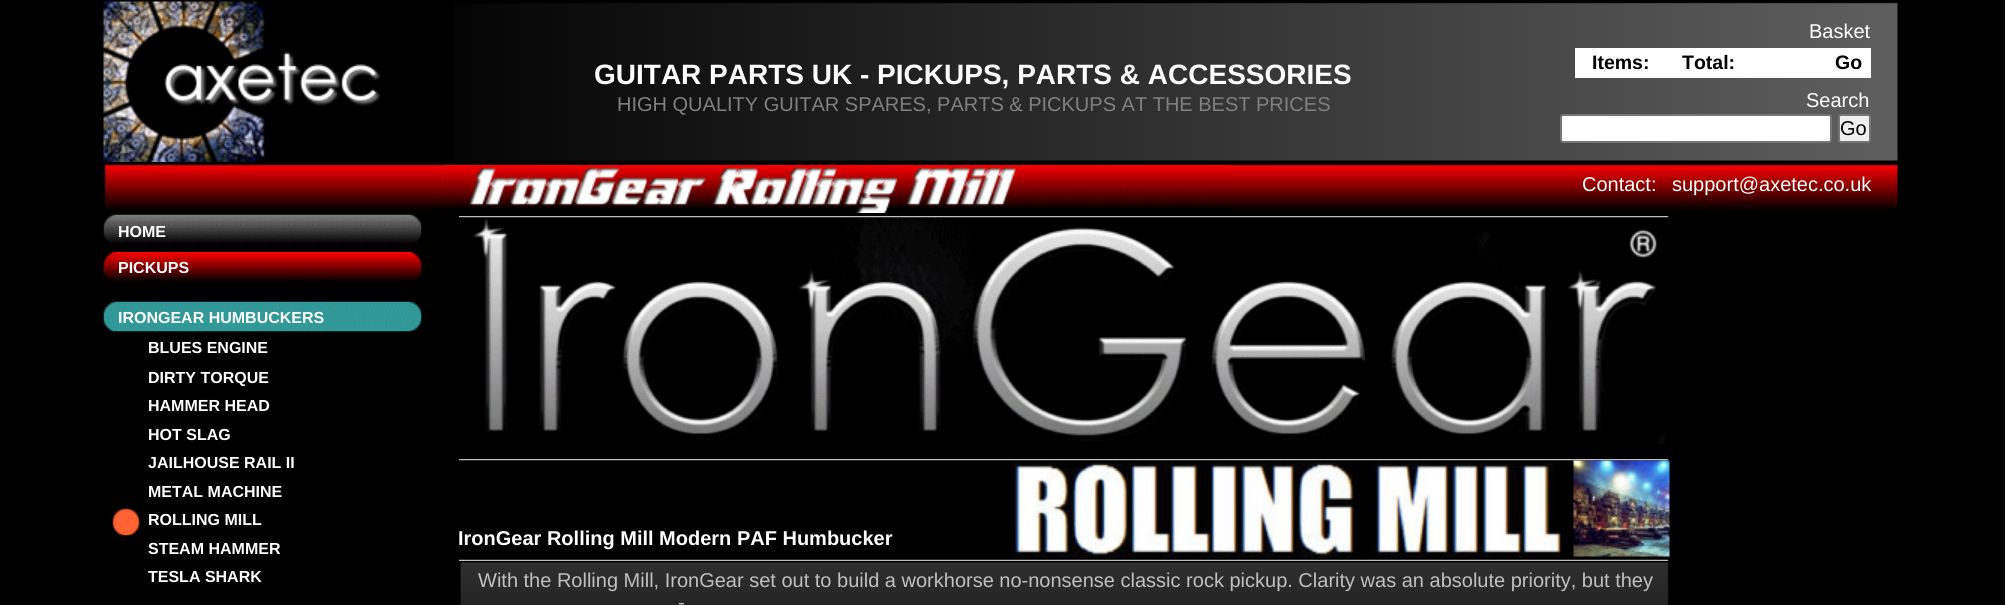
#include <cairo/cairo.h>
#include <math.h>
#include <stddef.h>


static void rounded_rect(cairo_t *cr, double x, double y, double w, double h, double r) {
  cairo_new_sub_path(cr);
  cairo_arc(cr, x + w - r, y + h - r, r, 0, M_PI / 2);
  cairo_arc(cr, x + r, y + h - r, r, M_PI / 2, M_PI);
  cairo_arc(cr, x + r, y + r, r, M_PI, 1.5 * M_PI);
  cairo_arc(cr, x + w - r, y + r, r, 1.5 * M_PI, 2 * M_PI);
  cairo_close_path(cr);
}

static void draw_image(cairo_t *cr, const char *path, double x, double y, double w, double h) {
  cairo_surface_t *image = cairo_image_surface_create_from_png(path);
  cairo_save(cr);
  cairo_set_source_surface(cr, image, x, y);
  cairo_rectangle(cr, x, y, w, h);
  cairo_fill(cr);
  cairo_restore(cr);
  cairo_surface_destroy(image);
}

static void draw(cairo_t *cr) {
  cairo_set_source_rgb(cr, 0, 0, 0);
  cairo_paint(cr);
  draw_image(cr, "images/1.png", 103, 1, 278, 161);
  draw_image(cr, "images/2.png", 455, 2, 1443, 159);
  draw_image(cr, "images/15.png", 104, 164, 1794, 46);
  draw_image(cr, "images/3.png", 442, 165, 790, 48);
  draw_image(cr, "images/4.png", 473, 214, 1192, 231);
  draw_image(cr, "images/5.png", 459, 216, 1210, 2);
  draw_image(cr, "images/6.png", 103, 214, 319, 29);
  draw_image(cr, "images/7.png", 103, 252, 319, 30);
  draw_image(cr, "images/8.png", 103, 301, 319, 31);
  draw_image(cr, "images/9.png", 1011, 462, 552, 96);
  draw_image(cr, "images/10.png", 112, 508, 28, 28);
  draw_image(cr, "images/12.png", 1573, 460, 97, 97);
  draw_image(cr, "images/11.png", 459, 459, 1210, 2);
  draw_image(cr, "images/13.png", 459, 559, 1210, 2);
  draw_image(cr, "images/14.png", 460, 562, 1209, 43);
  cairo_set_source_rgb(cr, 1, 1, 1);
  cairo_rectangle(cr, 1575, 48, 296, 30);
  cairo_fill(cr);
  rounded_rect(cr, 1561, 115, 270, 27, 2);
  cairo_fill_preserve(cr);
  cairo_set_source_rgb(cr, 118 / 255.0, 118 / 255.0, 118 / 255.0);
  cairo_stroke(cr);
  cairo_set_source_rgb(cr, 239 / 255.0, 239 / 255.0, 239 / 255.0);
  rounded_rect(cr, 1839, 115, 31, 27, 2);
  cairo_fill_preserve(cr);
  cairo_set_source_rgb(cr, 118 / 255.0, 118 / 255.0, 118 / 255.0);
  cairo_stroke(cr);
  cairo_select_font_face(cr, "Liberation Sans", CAIRO_FONT_SLANT_NORMAL, CAIRO_FONT_WEIGHT_NORMAL);
  cairo_set_font_size(cr, 20);
  cairo_set_source_rgb(cr, 1, 1, 1);
  cairo_move_to(cr, 1809, 38);
  cairo_show_text(cr, "Basket");
  cairo_select_font_face(cr, "Liberation Sans", CAIRO_FONT_SLANT_NORMAL, CAIRO_FONT_WEIGHT_BOLD);
  cairo_set_font_size(cr, 28);
  cairo_move_to(cr, 594, 84);
  cairo_show_text(cr, "GUITAR PARTS UK - PICKUPS, PARTS & ACCESSORIES");
  cairo_select_font_face(cr, "Liberation Sans", CAIRO_FONT_SLANT_NORMAL, CAIRO_FONT_WEIGHT_NORMAL);
  cairo_set_font_size(cr, 20);
  cairo_set_source_rgb(cr, 128 / 255.0, 128 / 255.0, 128 / 255.0);
  cairo_move_to(cr, 617, 111);
  cairo_show_text(cr, "HIGH QUALITY GUITAR SPARES, PARTS & PICKUPS AT THE BEST PRICES");
  cairo_set_source_rgb(cr, 1, 1, 1);
  cairo_move_to(cr, 1806, 107);
  cairo_show_text(cr, "Search");
  cairo_move_to(cr, 1582, 191);
  cairo_show_text(cr, "Contact:");
  cairo_move_to(cr, 1672, 191);
  cairo_show_text(cr, "support@axetec.co.uk");
  cairo_select_font_face(cr, "Liberation Sans", CAIRO_FONT_SLANT_NORMAL, CAIRO_FONT_WEIGHT_BOLD);
  cairo_set_font_size(cr, 16);
  cairo_move_to(cr, 118, 237);
  cairo_show_text(cr, "HOME");
  cairo_move_to(cr, 118, 273);
  cairo_show_text(cr, "PICKUPS");
  cairo_move_to(cr, 118, 323);
  cairo_show_text(cr, "IRONGEAR HUMBUCKERS");
  cairo_move_to(cr, 148, 353);
  cairo_show_text(cr, "BLUES ENGINE");
  cairo_move_to(cr, 148, 383);
  cairo_show_text(cr, "DIRTY TORQUE");
  cairo_move_to(cr, 148, 411);
  cairo_show_text(cr, "HAMMER HEAD");
  cairo_move_to(cr, 148, 440);
  cairo_show_text(cr, "HOT SLAG");
  cairo_move_to(cr, 148, 468);
  cairo_show_text(cr, "JAILHOUSE RAIL II");
  cairo_move_to(cr, 148, 497);
  cairo_show_text(cr, "METAL MACHINE");
  cairo_move_to(cr, 148, 525);
  cairo_show_text(cr, "ROLLING MILL");
  cairo_move_to(cr, 148, 554);
  cairo_show_text(cr, "STEAM HAMMER");
  cairo_move_to(cr, 148, 582);
  cairo_show_text(cr, "TESLA SHARK");
  cairo_set_font_size(cr, 20);
  cairo_move_to(cr, 458, 545);
  cairo_show_text(cr, "IronGear Rolling Mill Modern PAF Humbucker");
  cairo_select_font_face(cr, "Liberation Sans", CAIRO_FONT_SLANT_NORMAL, CAIRO_FONT_WEIGHT_NORMAL);
  cairo_set_source_rgb(cr, 192 / 255.0, 192 / 255.0, 192 / 255.0);
  cairo_move_to(cr, 478, 587);
  cairo_show_text(cr, "With the Rolling Mill, IronGear set out to build a workhorse no-nonsense classic rock pickup. Clarity was an absolute priority, but they");
  cairo_move_to(cr, 678, 609);
  cairo_show_text(cr, "-");
  cairo_select_font_face(cr, "Liberation Sans", CAIRO_FONT_SLANT_NORMAL, CAIRO_FONT_WEIGHT_BOLD);
  cairo_set_font_size(cr, 19.5);
  cairo_set_source_rgb(cr, 0, 0, 0);
  cairo_move_to(cr, 1592, 69);
  cairo_show_text(cr, "Items:");
  cairo_move_to(cr, 1682, 69);
  cairo_show_text(cr, "Total:");
  cairo_move_to(cr, 1835, 69);
  cairo_show_text(cr, "Go");
  cairo_select_font_face(cr, "Liberation Sans", CAIRO_FONT_SLANT_NORMAL, CAIRO_FONT_WEIGHT_NORMAL);
  cairo_set_font_size(cr, 20);
  cairo_move_to(cr, 1840, 135);
  cairo_show_text(cr, "Go");
}

int main(void) {
  cairo_surface_t *surface = cairo_image_surface_create(CAIRO_FORMAT_RGB24, 2005, 605);
  cairo_t *cr = cairo_create(surface);
  cairo_font_options_t *options = cairo_font_options_create();
  cairo_font_options_set_hint_metrics(options, CAIRO_HINT_METRICS_OFF);
  cairo_font_options_set_hint_style(options, CAIRO_HINT_STYLE_NONE);
  cairo_set_font_options(cr, options);
  cairo_set_miter_limit(cr, 4);
  draw(cr);
  cairo_surface_write_to_png(surface, "out.png");
  cairo_font_options_destroy(options);
  cairo_destroy(cr);
  cairo_surface_destroy(surface);
  return 0;
}
